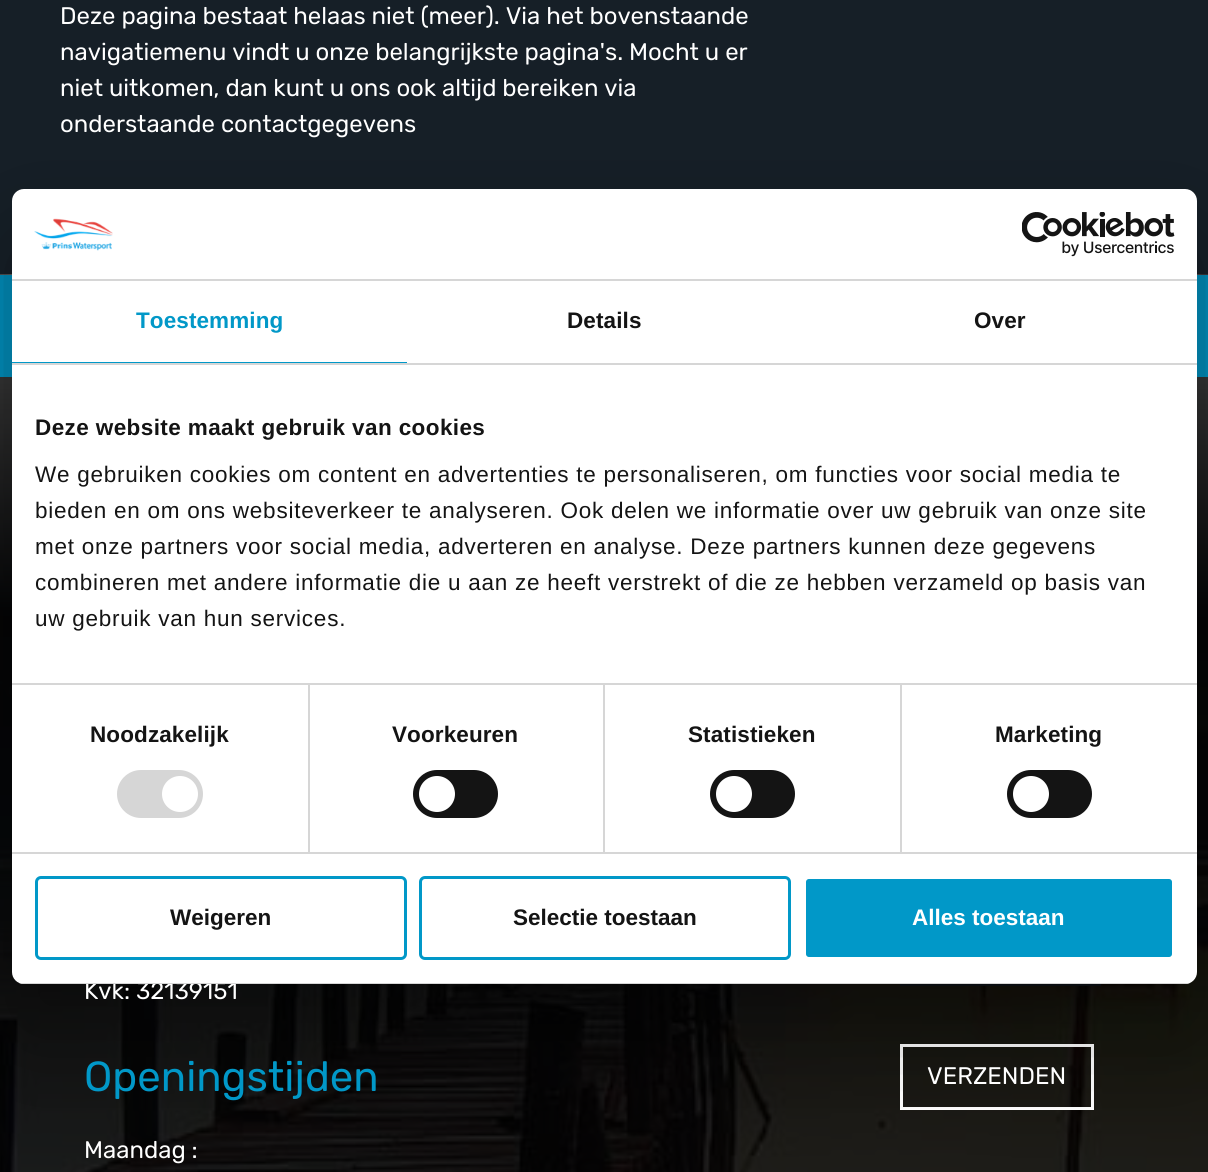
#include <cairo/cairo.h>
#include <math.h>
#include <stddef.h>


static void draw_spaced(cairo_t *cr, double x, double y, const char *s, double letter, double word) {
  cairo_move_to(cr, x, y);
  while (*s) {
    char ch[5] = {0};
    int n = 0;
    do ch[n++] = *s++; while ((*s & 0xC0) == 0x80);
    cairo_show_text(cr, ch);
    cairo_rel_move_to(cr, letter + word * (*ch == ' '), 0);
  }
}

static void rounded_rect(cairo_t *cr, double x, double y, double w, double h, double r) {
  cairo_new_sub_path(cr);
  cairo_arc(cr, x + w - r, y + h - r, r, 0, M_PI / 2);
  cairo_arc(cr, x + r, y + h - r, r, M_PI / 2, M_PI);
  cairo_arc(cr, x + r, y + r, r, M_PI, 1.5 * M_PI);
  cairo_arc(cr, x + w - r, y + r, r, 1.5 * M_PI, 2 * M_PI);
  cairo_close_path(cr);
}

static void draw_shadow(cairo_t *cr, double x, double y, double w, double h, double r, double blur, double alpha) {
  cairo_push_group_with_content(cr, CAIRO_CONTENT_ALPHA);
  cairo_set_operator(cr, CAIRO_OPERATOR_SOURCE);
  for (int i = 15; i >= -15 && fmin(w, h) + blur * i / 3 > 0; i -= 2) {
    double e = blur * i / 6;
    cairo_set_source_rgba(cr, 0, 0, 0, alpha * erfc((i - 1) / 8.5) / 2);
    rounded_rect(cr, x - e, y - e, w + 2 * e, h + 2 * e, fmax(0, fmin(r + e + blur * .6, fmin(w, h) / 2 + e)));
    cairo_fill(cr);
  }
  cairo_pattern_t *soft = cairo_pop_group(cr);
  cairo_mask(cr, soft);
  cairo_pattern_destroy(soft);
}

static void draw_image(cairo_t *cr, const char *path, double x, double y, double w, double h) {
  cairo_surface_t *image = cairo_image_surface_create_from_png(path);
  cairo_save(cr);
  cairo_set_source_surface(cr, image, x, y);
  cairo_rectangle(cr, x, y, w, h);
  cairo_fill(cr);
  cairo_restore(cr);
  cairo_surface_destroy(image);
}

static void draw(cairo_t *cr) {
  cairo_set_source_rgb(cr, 22 / 255.0, 31 / 255.0, 39 / 255.0);
  cairo_paint(cr);
  draw_image(cr, "images/1.png", 0, 274, 1208, 898);
  cairo_set_source_rgb(cr, 1 / 255.0, 140 / 255.0, 185 / 255.0);
  cairo_rectangle(cr, 0, 275, 12, 102);
  cairo_fill(cr);
  cairo_rectangle(cr, 1197, 275, 11, 102);
  cairo_fill(cr);
  cairo_set_source_rgba(cr, 0, 0, 0, 0.8);
  cairo_rectangle(cr, 0, 377, 1208, 795);
  cairo_fill(cr);
  cairo_rectangle(cr, 901, 747, 199, 238);
  cairo_set_source_rgb(cr, 13 / 255.0, 18 / 255.0, 23 / 255.0);
  cairo_stroke(cr);
  cairo_rectangle(cr, 901.5, 1045.5, 191, 63);
  cairo_set_source_rgb(cr, 1, 1, 1);
  cairo_set_line_width(cr, 3);
  cairo_stroke(cr);
  cairo_set_source_rgb(cr, 0, 0, 0);
  draw_shadow(cr, 12, 237, 1185, 795, 12, 51, 0.3);
  cairo_set_source_rgb(cr, 1, 1, 1);
  rounded_rect(cr, 12, 189, 1185, 795, 12);
  cairo_fill(cr);
  cairo_set_source_rgb(cr, 214 / 255.0, 214 / 255.0, 214 / 255.0);
  cairo_rectangle(cr, 12, 279, 1185, 2);
  cairo_fill(cr);
  draw_image(cr, "images/2.png", 34, 218, 79, 33);
  draw_image(cr, "images/3.png", 1022, 212, 153, 45);
  cairo_rectangle(cr, 12, 363, 1185, 2);
  cairo_fill(cr);
  cairo_set_source_rgb(cr, 1 / 255.0, 152 / 255.0, 200 / 255.0);
  cairo_rectangle(cr, 12, 362, 395, 1);
  cairo_fill(cr);
  cairo_set_source_rgb(cr, 214 / 255.0, 214 / 255.0, 214 / 255.0);
  cairo_rectangle(cr, 308, 684, 2, 168);
  cairo_fill(cr);
  cairo_rectangle(cr, 603, 684, 2, 168);
  cairo_fill(cr);
  cairo_rectangle(cr, 900, 684, 2, 168);
  cairo_fill(cr);
  cairo_rectangle(cr, 12, 683, 1185, 2);
  cairo_fill(cr);
  cairo_rectangle(cr, 12, 852, 1185, 2);
  cairo_fill(cr);
  rounded_rect(cr, 117, 770, 86, 48, 24);
  cairo_fill(cr);
  cairo_set_source_rgb(cr, 1, 1, 1);
  cairo_arc(cr, 180, 794, 18, 0, 2 * M_PI);
  cairo_fill(cr);
  cairo_set_source_rgb(cr, 20 / 255.0, 20 / 255.0, 20 / 255.0);
  rounded_rect(cr, 413, 770, 85, 48, 24);
  cairo_fill(cr);
  cairo_set_source_rgb(cr, 1, 1, 1);
  cairo_arc(cr, 437, 794, 18, 0, 2 * M_PI);
  cairo_fill(cr);
  cairo_set_source_rgb(cr, 20 / 255.0, 20 / 255.0, 20 / 255.0);
  rounded_rect(cr, 710, 770, 85, 48, 24);
  cairo_fill(cr);
  cairo_set_source_rgb(cr, 1, 1, 1);
  cairo_arc(cr, 734, 794, 18, 0, 2 * M_PI);
  cairo_fill(cr);
  cairo_set_source_rgb(cr, 20 / 255.0, 20 / 255.0, 20 / 255.0);
  rounded_rect(cr, 1007, 770, 85, 48, 24);
  cairo_fill(cr);
  cairo_set_source_rgb(cr, 1, 1, 1);
  cairo_arc(cr, 1031, 794, 18, 0, 2 * M_PI);
  cairo_fill(cr);
  rounded_rect(cr, 36.5, 877.5, 369, 81, 4.5);
  cairo_set_source_rgb(cr, 1 / 255.0, 152 / 255.0, 200 / 255.0);
  cairo_stroke(cr);
  rounded_rect(cr, 420.5, 877.5, 369, 81, 4.5);
  cairo_stroke(cr);
  rounded_rect(cr, 804.5, 877.5, 369, 81, 4.5);
  cairo_fill_preserve(cr);
  cairo_set_source_rgb(cr, 1, 1, 1);
  cairo_stroke(cr);
  cairo_select_font_face(cr, "Rubik", CAIRO_FONT_SLANT_NORMAL, CAIRO_FONT_WEIGHT_NORMAL);
  cairo_set_font_size(cr, 24);
  cairo_move_to(cr, 60, 24);
  cairo_show_text(cr, "Deze pagina bestaat helaas niet (meer). Via het bovenstaande");
  cairo_move_to(cr, 60, 60);
  cairo_show_text(cr, "navigatiemenu vindt u onze belangrijkste pagina's. Mocht u er");
  cairo_move_to(cr, 60, 96);
  cairo_show_text(cr, "niet uitkomen, dan kunt u ons ook altijd bereiken via");
  cairo_move_to(cr, 60, 132);
  cairo_show_text(cr, "onderstaande contactgegevens");
  cairo_move_to(cr, 84, 999);
  cairo_show_text(cr, "Kvk: 32139151");
  cairo_set_font_size(cr, 42);
  cairo_set_source_rgb(cr, 1 / 255.0, 152 / 255.0, 200 / 255.0);
  cairo_move_to(cr, 84, 1091);
  cairo_show_text(cr, "Openingstijden");
  cairo_set_font_size(cr, 24);
  cairo_set_source_rgb(cr, 1, 1, 1);
  cairo_move_to(cr, 84, 1158);
  cairo_show_text(cr, "Maandag :");
  cairo_move_to(cr, 927, 1084);
  cairo_show_text(cr, "VERZENDEN");
  cairo_select_font_face(cr, "Liberation Sans", CAIRO_FONT_SLANT_NORMAL, CAIRO_FONT_WEIGHT_BOLD);
  cairo_set_font_size(cr, 22.5);
  cairo_set_source_rgb(cr, 1 / 255.0, 152 / 255.0, 200 / 255.0);
  draw_spaced(cr, 136, 328, "Toestemming", 0.1, 0);
  cairo_set_source_rgb(cr, 20 / 255.0, 20 / 255.0, 20 / 255.0);
  draw_spaced(cr, 567, 328, "Details", 0.1, 0);
  draw_spaced(cr, 974, 328, "Over", 0.1, 0);
  draw_spaced(cr, 35, 435, "Deze website maakt gebruik van cookies", 0.4, 0);
  cairo_select_font_face(cr, "Liberation Sans", CAIRO_FONT_SLANT_NORMAL, CAIRO_FONT_WEIGHT_NORMAL);
  draw_spaced(cr, 35, 482, "We gebruiken cookies om content en advertenties te personaliseren, om functies voor social media te", 0.75, 0);
  draw_spaced(cr, 35, 518, "bieden en om ons websiteverkeer te analyseren. Ook delen we informatie over uw gebruik van onze site", 0.75, 0);
  draw_spaced(cr, 35, 554, "met onze partners voor social media, adverteren en analyse. Deze partners kunnen deze gegevens", 0.75, 0);
  draw_spaced(cr, 35, 590, "combineren met andere informatie die u aan ze heeft verstrekt of die ze hebben verzameld op basis van", 0.75, 0);
  draw_spaced(cr, 35, 626, "uw gebruik van hun services.", 0.75, 0);
  cairo_select_font_face(cr, "Liberation Sans", CAIRO_FONT_SLANT_NORMAL, CAIRO_FONT_WEIGHT_BOLD);
  draw_spaced(cr, 90, 742, "Noodzakelijk", 0.1, 0);
  draw_spaced(cr, 392, 742, "Voorkeuren", 0.1, 0);
  draw_spaced(cr, 688, 742, "Statistieken", 0.1, 0);
  draw_spaced(cr, 995, 742, "Marketing", 0.1, 0);
  cairo_save(cr);
  rounded_rect(cr, 12, 189, 1185, 795, 12);
  cairo_clip(cr);
  cairo_set_source_rgb(cr, 214 / 255.0, 214 / 255.0, 214 / 255.0);
  cairo_rectangle(cr, 12, 983, 1185, 1);
  cairo_fill(cr);
  cairo_restore(cr);
  cairo_move_to(cr, 170, 925);
  cairo_show_text(cr, "Weigeren");
  cairo_move_to(cr, 513, 925);
  cairo_show_text(cr, "Selectie toestaan");
  cairo_set_source_rgb(cr, 1, 1, 1);
  cairo_move_to(cr, 912, 925);
  cairo_show_text(cr, "Alles toestaan");
}

int main(void) {
  cairo_surface_t *surface = cairo_image_surface_create(CAIRO_FORMAT_RGB24, 1208, 1172);
  cairo_t *cr = cairo_create(surface);
  cairo_font_options_t *options = cairo_font_options_create();
  cairo_font_options_set_hint_metrics(options, CAIRO_HINT_METRICS_OFF);
  cairo_font_options_set_hint_style(options, CAIRO_HINT_STYLE_NONE);
  cairo_set_font_options(cr, options);
  cairo_set_miter_limit(cr, 4);
  draw(cr);
  cairo_surface_write_to_png(surface, "out.png");
  cairo_font_options_destroy(options);
  cairo_destroy(cr);
  cairo_surface_destroy(surface);
  return 0;
}
